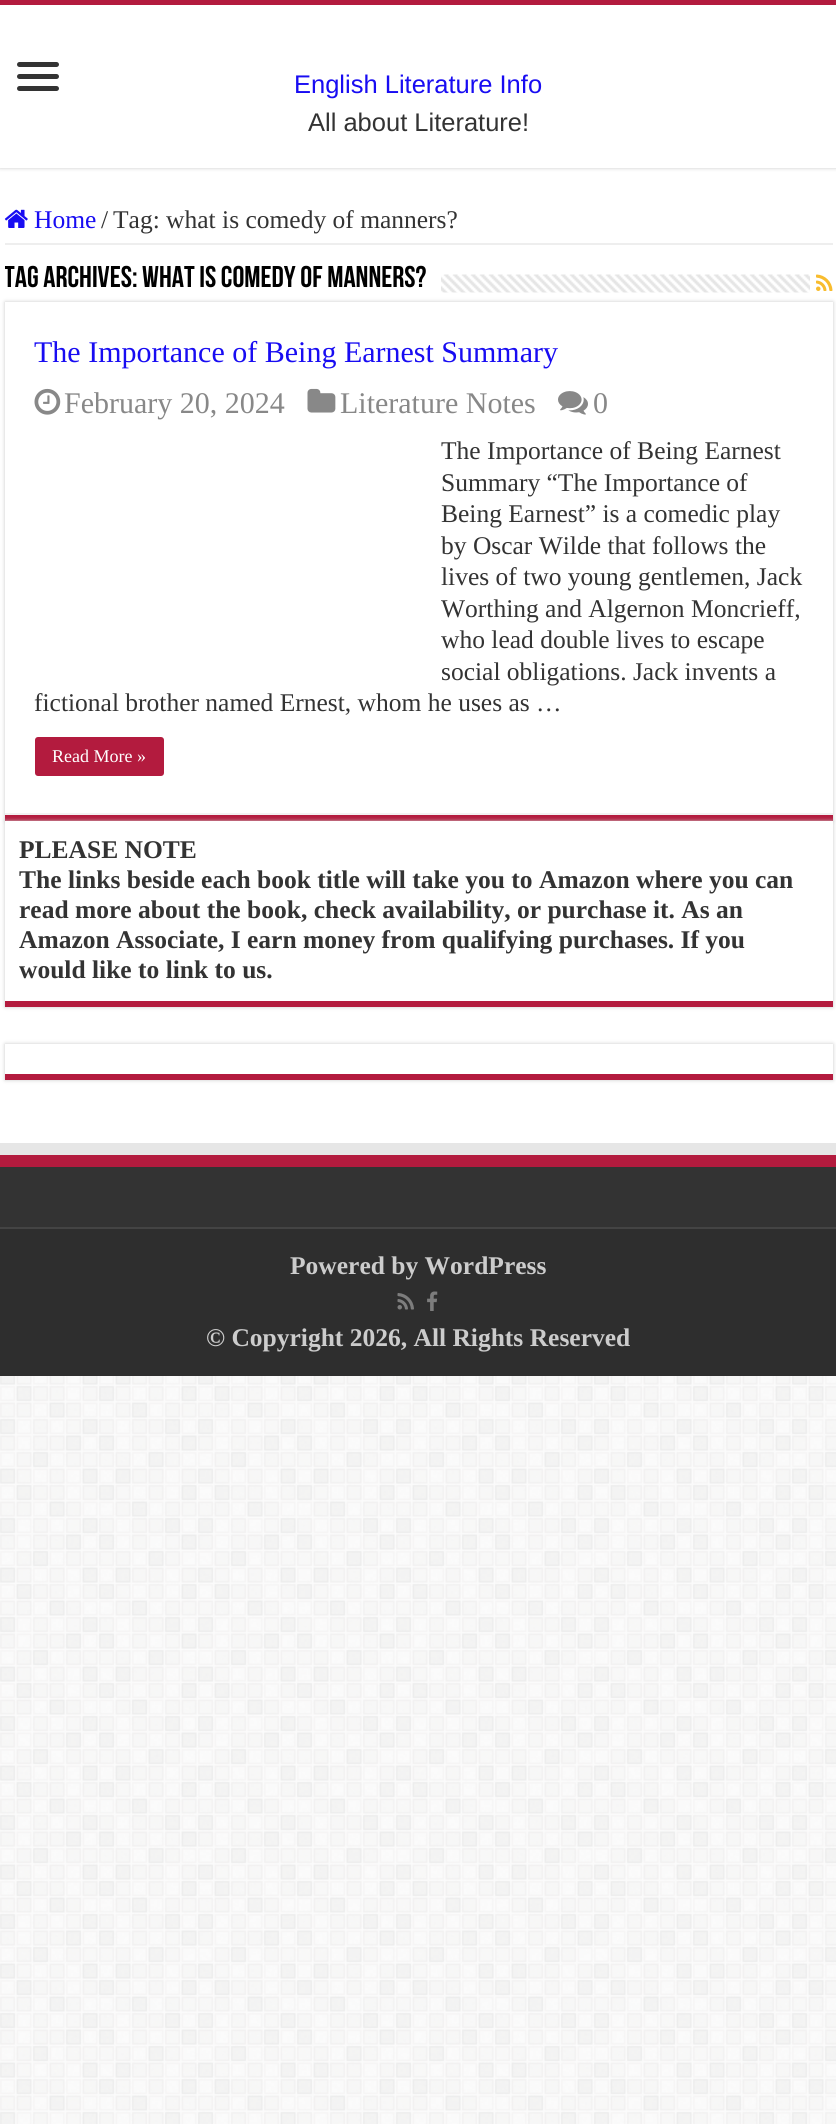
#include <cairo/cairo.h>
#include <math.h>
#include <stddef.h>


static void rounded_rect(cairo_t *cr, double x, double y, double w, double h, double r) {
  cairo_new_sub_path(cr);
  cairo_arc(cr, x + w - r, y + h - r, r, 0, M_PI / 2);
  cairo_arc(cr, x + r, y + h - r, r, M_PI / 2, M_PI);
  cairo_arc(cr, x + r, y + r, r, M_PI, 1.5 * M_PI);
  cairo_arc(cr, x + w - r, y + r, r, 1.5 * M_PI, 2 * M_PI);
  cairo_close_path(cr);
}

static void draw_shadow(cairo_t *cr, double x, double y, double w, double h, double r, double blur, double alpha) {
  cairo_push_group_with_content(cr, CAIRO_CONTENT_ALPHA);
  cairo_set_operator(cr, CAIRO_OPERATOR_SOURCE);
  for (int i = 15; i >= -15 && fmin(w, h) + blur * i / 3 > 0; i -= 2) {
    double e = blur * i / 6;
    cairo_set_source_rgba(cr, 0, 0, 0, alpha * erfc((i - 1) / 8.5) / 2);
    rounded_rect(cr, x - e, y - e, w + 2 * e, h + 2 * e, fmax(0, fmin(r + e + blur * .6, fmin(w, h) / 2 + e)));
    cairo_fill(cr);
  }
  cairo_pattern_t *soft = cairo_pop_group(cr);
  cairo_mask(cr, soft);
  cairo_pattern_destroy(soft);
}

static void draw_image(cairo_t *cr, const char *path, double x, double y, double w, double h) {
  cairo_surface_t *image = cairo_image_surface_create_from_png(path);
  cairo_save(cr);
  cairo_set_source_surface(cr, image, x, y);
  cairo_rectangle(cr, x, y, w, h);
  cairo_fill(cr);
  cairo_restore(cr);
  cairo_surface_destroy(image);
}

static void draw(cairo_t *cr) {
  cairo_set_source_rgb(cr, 1, 1, 1);
  cairo_paint(cr);
  draw_image(cr, "images/1.png", 0, 1376, 836, 748);
  cairo_save(cr);
  cairo_rectangle(cr, 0, 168, 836, 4);
  cairo_clip(cr);
  cairo_set_source_rgb(cr, 202 / 255.0, 202 / 255.0, 202 / 255.0);
  draw_shadow(cr, 0, 0, 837, 168, 0, 2, 1);
  cairo_restore(cr);
  cairo_set_source_rgb(cr, 179 / 255.0, 27 / 255.0, 62 / 255.0);
  cairo_rectangle(cr, 0, 0, 836, 5);
  cairo_fill(cr);
  cairo_set_source_rgb(cr, 51 / 255.0, 51 / 255.0, 51 / 255.0);
  rounded_rect(cr, 17, 62, 42, 5, 2.5);
  cairo_fill(cr);
  rounded_rect(cr, 17, 74, 42, 5, 2.5);
  cairo_fill(cr);
  rounded_rect(cr, 17, 86, 42, 5, 2.5);
  cairo_fill(cr);
  cairo_set_source_rgb(cr, 238 / 255.0, 238 / 255.0, 238 / 255.0);
  cairo_rectangle(cr, 5, 243, 828, 2);
  cairo_fill(cr);
  draw_image(cr, "images/2.png", 4, 209, 24, 19);
  draw_image(cr, "images/3.png", 441, 274, 369, 19);
  draw_image(cr, "images/4.png", 816, 274, 17, 17);
  cairo_set_source_rgb(cr, 202 / 255.0, 202 / 255.0, 202 / 255.0);
  draw_shadow(cr, 5, 302, 828, 519, 0, 2, 1);
  cairo_set_source_rgb(cr, 1, 1, 1);
  cairo_rectangle(cr, 5, 302, 828, 511);
  cairo_fill(cr);
  cairo_set_source_rgb(cr, 179 / 255.0, 27 / 255.0, 62 / 255.0);
  cairo_rectangle(cr, 5, 815, 828, 6);
  cairo_fill(cr);
  cairo_set_source_rgb(cr, 242 / 255.0, 242 / 255.0, 242 / 255.0);
  cairo_rectangle(cr, 5, 813, 828, 2);
  cairo_fill(cr);
  draw_image(cr, "images/5.png", 34, 388, 27, 27);
  draw_image(cr, "images/6.png", 307, 388, 29, 25);
  draw_image(cr, "images/7.png", 558, 391, 30, 24);
  cairo_set_source_rgb(cr, 179 / 255.0, 27 / 255.0, 62 / 255.0);
  rounded_rect(cr, 35, 737, 129, 39, 3);
  cairo_fill(cr);
  cairo_set_source_rgb(cr, 202 / 255.0, 202 / 255.0, 202 / 255.0);
  draw_shadow(cr, 5, 821, 828, 186, 0, 2, 1);
  cairo_set_source_rgb(cr, 1, 1, 1);
  cairo_rectangle(cr, 5, 821, 828, 180);
  cairo_fill(cr);
  cairo_set_source_rgb(cr, 179 / 255.0, 27 / 255.0, 62 / 255.0);
  cairo_rectangle(cr, 5, 1001, 828, 6);
  cairo_fill(cr);
  cairo_set_source_rgb(cr, 202 / 255.0, 202 / 255.0, 202 / 255.0);
  draw_shadow(cr, 5, 1044, 828, 36, 0, 2, 1);
  cairo_set_source_rgb(cr, 1, 1, 1);
  cairo_rectangle(cr, 5, 1044, 828, 30);
  cairo_fill(cr);
  cairo_set_source_rgb(cr, 179 / 255.0, 27 / 255.0, 62 / 255.0);
  cairo_rectangle(cr, 5, 1074, 828, 6);
  cairo_fill(cr);
  cairo_set_source_rgb(cr, 230 / 255.0, 230 / 255.0, 230 / 255.0);
  cairo_rectangle(cr, 0, 1143, 836, 12);
  cairo_fill(cr);
  cairo_set_source_rgb(cr, 51 / 255.0, 51 / 255.0, 51 / 255.0);
  cairo_rectangle(cr, 0, 1167, 836, 60);
  cairo_fill(cr);
  cairo_set_source_rgb(cr, 179 / 255.0, 27 / 255.0, 62 / 255.0);
  cairo_rectangle(cr, 0, 1155, 836, 12);
  cairo_fill(cr);
  cairo_set_source_rgb(cr, 46 / 255.0, 46 / 255.0, 46 / 255.0);
  cairo_rectangle(cr, 0, 1229, 836, 147);
  cairo_fill(cr);
  cairo_set_source_rgb(cr, 68 / 255.0, 68 / 255.0, 68 / 255.0);
  cairo_rectangle(cr, 0, 1227, 836, 2);
  cairo_fill(cr);
  draw_image(cr, "images/8.png", 397, 1293, 17, 17);
  draw_image(cr, "images/9.png", 427, 1291, 11, 20);
  cairo_select_font_face(cr, "Liberation Sans", CAIRO_FONT_SLANT_NORMAL, CAIRO_FONT_WEIGHT_NORMAL);
  cairo_set_font_size(cr, 25.5);
  cairo_set_source_rgb(cr, 24 / 255.0, 12 / 255.0, 242 / 255.0);
  cairo_move_to(cr, 294, 93);
  cairo_show_text(cr, "English Literature Info");
  cairo_set_source_rgb(cr, 51 / 255.0, 51 / 255.0, 51 / 255.0);
  cairo_move_to(cr, 308, 131);
  cairo_show_text(cr, "All about Literature!");
  cairo_select_font_face(cr, "Liberation Serif", CAIRO_FONT_SLANT_NORMAL, CAIRO_FONT_WEIGHT_NORMAL);
  cairo_set_source_rgb(cr, 24 / 255.0, 12 / 255.0, 242 / 255.0);
  cairo_move_to(cr, 34, 228);
  cairo_show_text(cr, "Home");
  cairo_set_source_rgb(cr, 51 / 255.0, 51 / 255.0, 51 / 255.0);
  cairo_move_to(cr, 101, 228);
  cairo_show_text(cr, "/");
  cairo_move_to(cr, 113, 228);
  cairo_show_text(cr, "Tag: what is comedy of manners?");
  cairo_save(cr);
  cairo_rectangle(cr, 5, 260, 828, 42);
  cairo_clip(cr);
  cairo_select_font_face(cr, "Bebas Neue", CAIRO_FONT_SLANT_NORMAL, CAIRO_FONT_WEIGHT_BOLD);
  cairo_set_font_size(cr, 30);
  cairo_set_source_rgb(cr, 0, 0, 0);
  cairo_move_to(cr, 4, 287);
  cairo_show_text(cr, "Tag Archives:");
  cairo_restore(cr);
  cairo_select_font_face(cr, "Bebas Neue", CAIRO_FONT_SLANT_NORMAL, CAIRO_FONT_WEIGHT_BOLD);
  cairo_set_font_size(cr, 30);
  cairo_set_source_rgb(cr, 0, 0, 0);
  cairo_move_to(cr, 142, 287);
  cairo_show_text(cr, "what is comedy of manners?");
  cairo_select_font_face(cr, "Liberation Serif", CAIRO_FONT_SLANT_NORMAL, CAIRO_FONT_WEIGHT_NORMAL);
  cairo_set_source_rgb(cr, 24 / 255.0, 12 / 255.0, 242 / 255.0);
  cairo_move_to(cr, 34, 362);
  cairo_show_text(cr, "The Importance of Being Earnest Summary");
  cairo_set_source_rgb(cr, 136 / 255.0, 136 / 255.0, 136 / 255.0);
  cairo_move_to(cr, 64, 413);
  cairo_show_text(cr, "February 20, 2024");
  cairo_move_to(cr, 340, 413);
  cairo_show_text(cr, "Literature Notes");
  cairo_move_to(cr, 593, 413);
  cairo_show_text(cr, "0");
  cairo_set_font_size(cr, 25.5);
  cairo_set_source_rgb(cr, 51 / 255.0, 51 / 255.0, 51 / 255.0);
  cairo_move_to(cr, 441, 459);
  cairo_show_text(cr, "The Importance of Being Earnest");
  cairo_move_to(cr, 441, 491);
  cairo_show_text(cr, "Summary “The Importance of");
  cairo_move_to(cr, 441, 522);
  cairo_show_text(cr, "Being Earnest” is a comedic play");
  cairo_move_to(cr, 441, 554);
  cairo_show_text(cr, "by Oscar Wilde that follows the");
  cairo_move_to(cr, 441, 585);
  cairo_show_text(cr, "lives of two young gentlemen, Jack");
  cairo_move_to(cr, 441, 617);
  cairo_show_text(cr, "Worthing and Algernon Moncrieff,");
  cairo_move_to(cr, 441, 648);
  cairo_show_text(cr, "who lead double lives to escape");
  cairo_move_to(cr, 441, 680);
  cairo_show_text(cr, "social obligations. Jack invents a");
  cairo_move_to(cr, 34, 711);
  cairo_show_text(cr, "fictional brother named Ernest, whom he uses as …");
  cairo_set_font_size(cr, 18);
  cairo_set_source_rgb(cr, 1, 1, 1);
  cairo_move_to(cr, 52, 762);
  cairo_show_text(cr, "Read More »");
  cairo_select_font_face(cr, "Liberation Serif", CAIRO_FONT_SLANT_NORMAL, CAIRO_FONT_WEIGHT_BOLD);
  cairo_set_font_size(cr, 25.5);
  cairo_set_source_rgb(cr, 51 / 255.0, 51 / 255.0, 51 / 255.0);
  cairo_move_to(cr, 19, 858);
  cairo_show_text(cr, "PLEASE NOTE");
  cairo_move_to(cr, 19, 888);
  cairo_show_text(cr, "The links beside each book title will take you to Amazon where you can");
  cairo_move_to(cr, 19, 918);
  cairo_show_text(cr, "read more about the book, check availability, or purchase it. As an");
  cairo_move_to(cr, 19, 948);
  cairo_show_text(cr, "Amazon Associate, I earn money from qualifying purchases. If you");
  cairo_move_to(cr, 19, 978);
  cairo_show_text(cr, "would like to link to us.");
  cairo_set_source_rgb(cr, 204 / 255.0, 204 / 255.0, 204 / 255.0);
  cairo_move_to(cr, 290, 1274);
  cairo_show_text(cr, "Powered by WordPress");
  cairo_move_to(cr, 206, 1346);
  cairo_show_text(cr, "© Copyright 2026, All Rights Reserved");
}

int main(void) {
  cairo_surface_t *surface = cairo_image_surface_create(CAIRO_FORMAT_RGB24, 836, 2124);
  cairo_t *cr = cairo_create(surface);
  cairo_font_options_t *options = cairo_font_options_create();
  cairo_font_options_set_hint_metrics(options, CAIRO_HINT_METRICS_OFF);
  cairo_font_options_set_hint_style(options, CAIRO_HINT_STYLE_NONE);
  cairo_set_font_options(cr, options);
  cairo_set_miter_limit(cr, 4);
  draw(cr);
  cairo_surface_write_to_png(surface, "out.png");
  cairo_font_options_destroy(options);
  cairo_destroy(cr);
  cairo_surface_destroy(surface);
  return 0;
}
